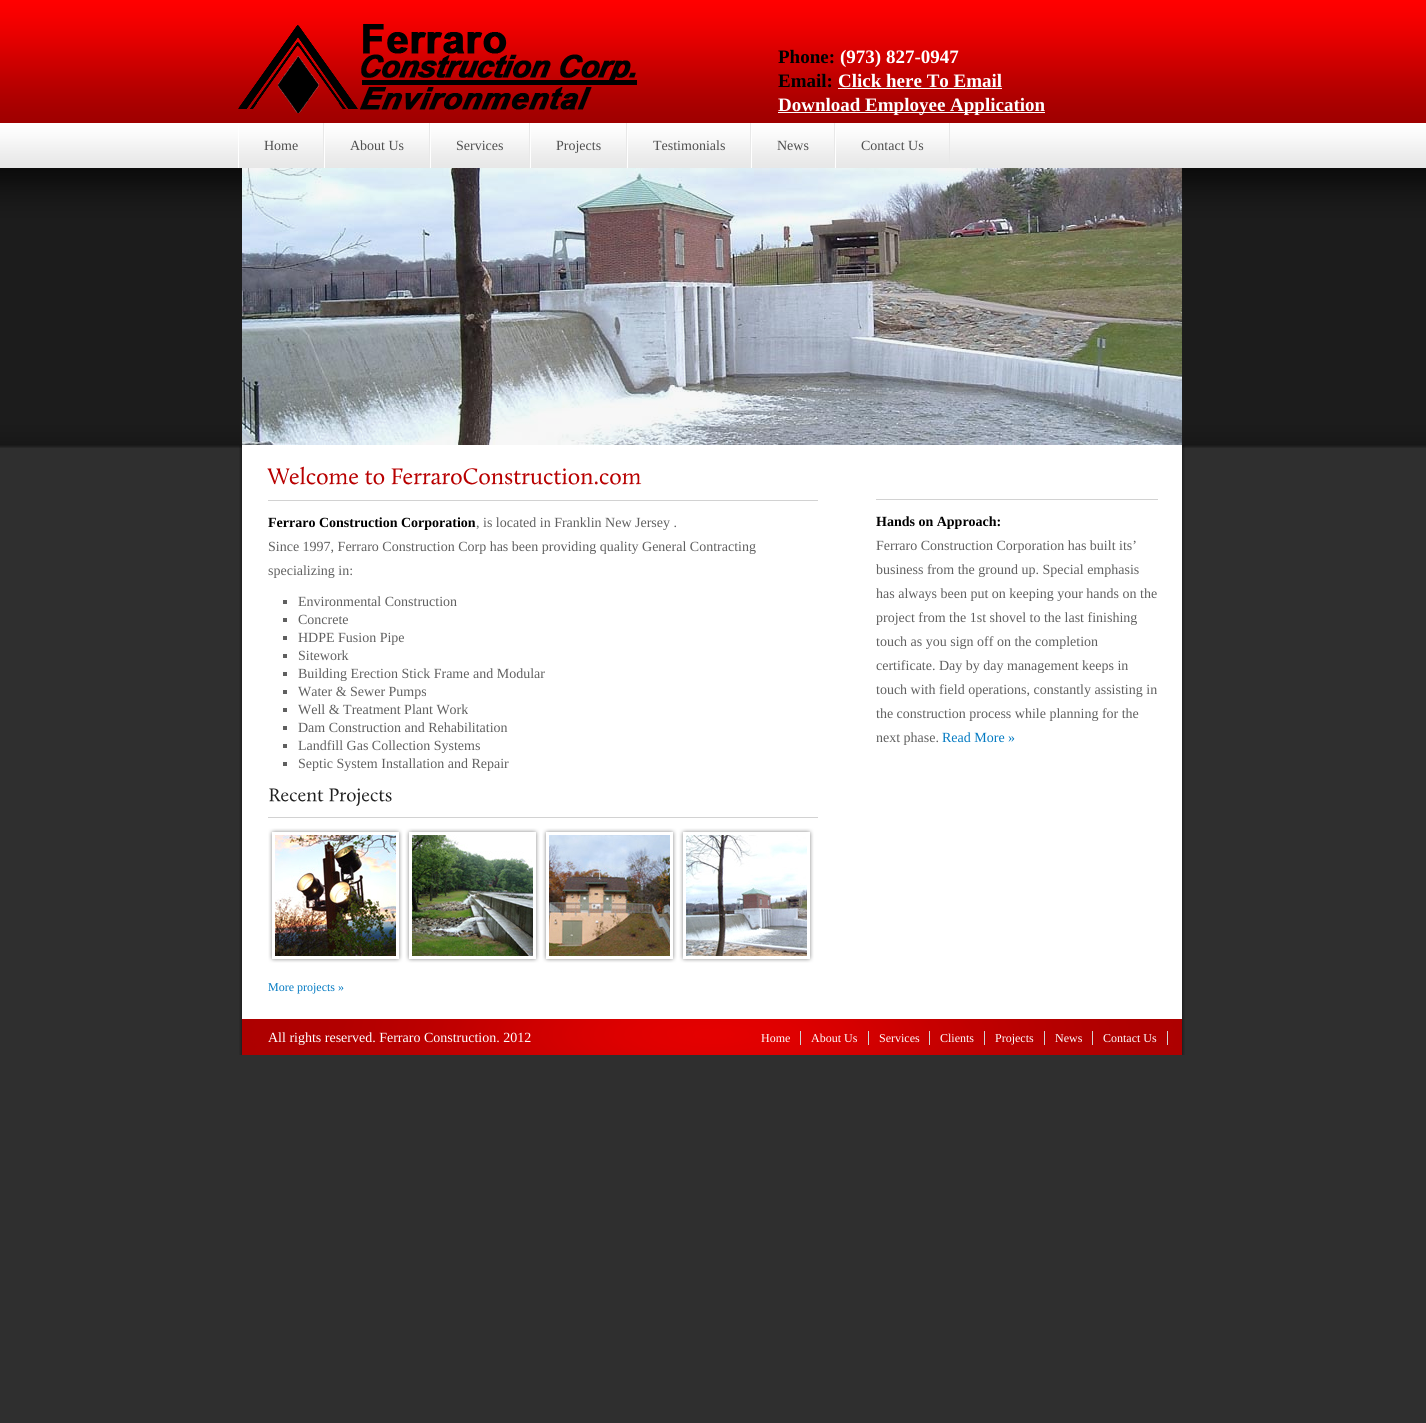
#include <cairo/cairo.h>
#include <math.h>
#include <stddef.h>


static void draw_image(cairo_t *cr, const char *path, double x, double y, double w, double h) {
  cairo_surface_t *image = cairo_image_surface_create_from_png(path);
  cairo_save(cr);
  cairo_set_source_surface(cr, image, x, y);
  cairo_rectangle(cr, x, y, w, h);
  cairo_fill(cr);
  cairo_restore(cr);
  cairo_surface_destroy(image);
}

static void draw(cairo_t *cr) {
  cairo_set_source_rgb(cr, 47 / 255.0, 47 / 255.0, 47 / 255.0);
  cairo_paint(cr);
  draw_image(cr, "images/1.png", 0, 0, 1426, 448);
  draw_image(cr, "images/2.png", 238, 24, 399, 89);
  cairo_set_source_rgb(cr, 1, 1, 1);
  cairo_rectangle(cr, 838, 88, 164, 1);
  cairo_fill(cr);
  cairo_rectangle(cr, 778, 112, 267, 1);
  cairo_fill(cr);
  cairo_set_source_rgb(cr, 232 / 255.0, 232 / 255.0, 232 / 255.0);
  cairo_rectangle(cr, 323, 123, 1, 45);
  cairo_fill(cr);
  cairo_set_source_rgb(cr, 1, 1, 1);
  cairo_rectangle(cr, 238, 123, 1, 45);
  cairo_fill(cr);
  cairo_set_source_rgb(cr, 232 / 255.0, 232 / 255.0, 232 / 255.0);
  cairo_rectangle(cr, 429, 123, 1, 45);
  cairo_fill(cr);
  cairo_set_source_rgb(cr, 1, 1, 1);
  cairo_rectangle(cr, 324, 123, 1, 45);
  cairo_fill(cr);
  cairo_set_source_rgb(cr, 232 / 255.0, 232 / 255.0, 232 / 255.0);
  cairo_rectangle(cr, 529, 123, 1, 45);
  cairo_fill(cr);
  cairo_set_source_rgb(cr, 1, 1, 1);
  cairo_rectangle(cr, 430, 123, 1, 45);
  cairo_fill(cr);
  cairo_set_source_rgb(cr, 232 / 255.0, 232 / 255.0, 232 / 255.0);
  cairo_rectangle(cr, 626, 123, 1, 45);
  cairo_fill(cr);
  cairo_set_source_rgb(cr, 1, 1, 1);
  cairo_rectangle(cr, 530, 123, 1, 45);
  cairo_fill(cr);
  cairo_set_source_rgb(cr, 232 / 255.0, 232 / 255.0, 232 / 255.0);
  cairo_rectangle(cr, 750, 123, 1, 45);
  cairo_fill(cr);
  cairo_set_source_rgb(cr, 1, 1, 1);
  cairo_rectangle(cr, 627, 123, 1, 45);
  cairo_fill(cr);
  cairo_set_source_rgb(cr, 232 / 255.0, 232 / 255.0, 232 / 255.0);
  cairo_rectangle(cr, 834, 123, 1, 45);
  cairo_fill(cr);
  cairo_set_source_rgb(cr, 1, 1, 1);
  cairo_rectangle(cr, 751, 123, 1, 45);
  cairo_fill(cr);
  cairo_set_source_rgb(cr, 232 / 255.0, 232 / 255.0, 232 / 255.0);
  cairo_rectangle(cr, 949, 123, 1, 45);
  cairo_fill(cr);
  cairo_set_source_rgb(cr, 1, 1, 1);
  cairo_rectangle(cr, 835, 123, 1, 45);
  cairo_fill(cr);
  draw_image(cr, "images/3.png", 242, 168, 940, 277);
  draw_image(cr, "images/4.png", 239, 445, 946, 574);
  draw_image(cr, "images/5.png", 267, 466, 92, 19);
  draw_image(cr, "images/6.png", 365, 470, 20, 15);
  draw_image(cr, "images/7.png", 391, 468, 251, 17);
  cairo_set_source_rgb(cr, 210 / 255.0, 210 / 255.0, 210 / 255.0);
  cairo_rectangle(cr, 268, 500, 550, 1);
  cairo_fill(cr);
  cairo_set_source_rgb(cr, 96 / 255.0, 96 / 255.0, 96 / 255.0);
  cairo_rectangle(cr, 283, 600, 4, 4);
  cairo_fill(cr);
  cairo_rectangle(cr, 283, 618, 4, 4);
  cairo_fill(cr);
  cairo_rectangle(cr, 283, 636, 4, 4);
  cairo_fill(cr);
  cairo_rectangle(cr, 283, 654, 4, 4);
  cairo_fill(cr);
  cairo_rectangle(cr, 283, 672, 4, 4);
  cairo_fill(cr);
  cairo_rectangle(cr, 283, 690, 4, 4);
  cairo_fill(cr);
  cairo_rectangle(cr, 283, 708, 4, 4);
  cairo_fill(cr);
  cairo_rectangle(cr, 283, 726, 4, 4);
  cairo_fill(cr);
  cairo_rectangle(cr, 283, 744, 4, 4);
  cairo_fill(cr);
  cairo_rectangle(cr, 283, 762, 4, 4);
  cairo_fill(cr);
  draw_image(cr, "images/8.png", 269, 788, 55, 14);
  draw_image(cr, "images/9.png", 329, 788, 63, 18);
  cairo_set_source_rgb(cr, 210 / 255.0, 210 / 255.0, 210 / 255.0);
  cairo_rectangle(cr, 268, 817, 550, 1);
  cairo_fill(cr);
  draw_image(cr, "images/10.png", 268, 828, 135, 135);
  draw_image(cr, "images/11.png", 275, 835, 121, 121);
  draw_image(cr, "images/10.png", 405, 828, 135, 135);
  draw_image(cr, "images/12.png", 412, 835, 121, 121);
  draw_image(cr, "images/10.png", 542, 828, 135, 135);
  draw_image(cr, "images/13.png", 549, 835, 121, 121);
  draw_image(cr, "images/10.png", 679, 828, 135, 135);
  draw_image(cr, "images/14.png", 686, 835, 121, 121);
  cairo_rectangle(cr, 876, 499, 282, 1);
  cairo_fill(cr);
  draw_image(cr, "images/15.png", 239, 1019, 946, 36);
  cairo_rectangle(cr, 800, 1031, 1, 14);
  cairo_fill(cr);
  cairo_rectangle(cr, 868, 1031, 1, 14);
  cairo_fill(cr);
  cairo_rectangle(cr, 929, 1031, 1, 14);
  cairo_fill(cr);
  cairo_rectangle(cr, 984, 1031, 1, 14);
  cairo_fill(cr);
  cairo_rectangle(cr, 1044, 1031, 1, 14);
  cairo_fill(cr);
  cairo_rectangle(cr, 1092, 1031, 1, 14);
  cairo_fill(cr);
  cairo_rectangle(cr, 1167, 1031, 1, 14);
  cairo_fill(cr);
  cairo_select_font_face(cr, "Liberation Serif", CAIRO_FONT_SLANT_NORMAL, CAIRO_FONT_WEIGHT_BOLD);
  cairo_set_font_size(cr, 19);
  cairo_set_source_rgb(cr, 0, 0, 0);
  cairo_move_to(cr, 778, 63);
  cairo_show_text(cr, "Phone:");
  cairo_set_source_rgb(cr, 1, 1, 1);
  cairo_move_to(cr, 840, 63);
  cairo_show_text(cr, "(973) 827-0947");
  cairo_set_source_rgb(cr, 0, 0, 0);
  cairo_move_to(cr, 778, 87);
  cairo_show_text(cr, "Email:");
  cairo_set_source_rgb(cr, 1, 1, 1);
  cairo_move_to(cr, 838, 87);
  cairo_show_text(cr, "Click here To Email");
  cairo_move_to(cr, 778, 111);
  cairo_show_text(cr, "Download Employee Application");
  cairo_select_font_face(cr, "Liberation Serif", CAIRO_FONT_SLANT_NORMAL, CAIRO_FONT_WEIGHT_NORMAL);
  cairo_set_font_size(cr, 14);
  cairo_set_source_rgb(cr, 79 / 255.0, 79 / 255.0, 79 / 255.0);
  cairo_move_to(cr, 264, 150);
  cairo_show_text(cr, "Home");
  cairo_move_to(cr, 350, 150);
  cairo_show_text(cr, "About Us");
  cairo_move_to(cr, 456, 150);
  cairo_show_text(cr, "Services");
  cairo_move_to(cr, 556, 150);
  cairo_show_text(cr, "Projects");
  cairo_move_to(cr, 653, 150);
  cairo_show_text(cr, "Testimonials");
  cairo_move_to(cr, 777, 150);
  cairo_show_text(cr, "News");
  cairo_move_to(cr, 861, 150);
  cairo_show_text(cr, "Contact Us");
  cairo_select_font_face(cr, "Liberation Serif", CAIRO_FONT_SLANT_NORMAL, CAIRO_FONT_WEIGHT_BOLD);
  cairo_set_source_rgb(cr, 0, 0, 0);
  cairo_move_to(cr, 268, 527);
  cairo_show_text(cr, "Ferraro Construction Corporation");
  cairo_select_font_face(cr, "Liberation Serif", CAIRO_FONT_SLANT_NORMAL, CAIRO_FONT_WEIGHT_NORMAL);
  cairo_set_source_rgb(cr, 96 / 255.0, 96 / 255.0, 96 / 255.0);
  cairo_move_to(cr, 476, 527);
  cairo_show_text(cr, ", is located in Franklin New Jersey .");
  cairo_move_to(cr, 268, 551);
  cairo_show_text(cr, "Since 1997, Ferraro Construction Corp has been providing quality General Contracting");
  cairo_move_to(cr, 268, 575);
  cairo_show_text(cr, "specializing in:");
  cairo_move_to(cr, 298, 606);
  cairo_show_text(cr, "Environmental Construction");
  cairo_move_to(cr, 298, 624);
  cairo_show_text(cr, "Concrete");
  cairo_move_to(cr, 298, 642);
  cairo_show_text(cr, "HDPE Fusion Pipe");
  cairo_move_to(cr, 298, 660);
  cairo_show_text(cr, "Sitework");
  cairo_move_to(cr, 298, 678);
  cairo_show_text(cr, "Building Erection Stick Frame and Modular");
  cairo_move_to(cr, 298, 696);
  cairo_show_text(cr, "Water & Sewer Pumps");
  cairo_move_to(cr, 298, 714);
  cairo_show_text(cr, "Well & Treatment Plant Work");
  cairo_move_to(cr, 298, 732);
  cairo_show_text(cr, "Dam Construction and Rehabilitation");
  cairo_move_to(cr, 298, 750);
  cairo_show_text(cr, "Landfill Gas Collection Systems");
  cairo_move_to(cr, 298, 768);
  cairo_show_text(cr, "Septic System Installation and Repair");
  cairo_set_font_size(cr, 12);
  cairo_set_source_rgb(cr, 3 / 255.0, 122 / 255.0, 194 / 255.0);
  cairo_move_to(cr, 268, 991);
  cairo_show_text(cr, "More projects »");
  cairo_select_font_face(cr, "Liberation Serif", CAIRO_FONT_SLANT_NORMAL, CAIRO_FONT_WEIGHT_BOLD);
  cairo_set_font_size(cr, 14);
  cairo_set_source_rgb(cr, 0, 0, 0);
  cairo_move_to(cr, 876, 526);
  cairo_show_text(cr, "Hands on Approach:");
  cairo_select_font_face(cr, "Liberation Serif", CAIRO_FONT_SLANT_NORMAL, CAIRO_FONT_WEIGHT_NORMAL);
  cairo_set_source_rgb(cr, 96 / 255.0, 96 / 255.0, 96 / 255.0);
  cairo_move_to(cr, 876, 550);
  cairo_show_text(cr, "Ferraro Construction Corporation has built its’");
  cairo_move_to(cr, 876, 574);
  cairo_show_text(cr, "business from the ground up. Special emphasis");
  cairo_move_to(cr, 876, 598);
  cairo_show_text(cr, "has always been put on keeping your hands on the");
  cairo_move_to(cr, 876, 622);
  cairo_show_text(cr, "project from the 1st shovel to the last finishing");
  cairo_move_to(cr, 876, 646);
  cairo_show_text(cr, "touch as you sign off on the completion");
  cairo_move_to(cr, 876, 670);
  cairo_show_text(cr, "certificate. Day by day management keeps in");
  cairo_move_to(cr, 876, 694);
  cairo_show_text(cr, "touch with field operations, constantly assisting in");
  cairo_move_to(cr, 876, 718);
  cairo_show_text(cr, "the construction process while planning for the");
  cairo_move_to(cr, 876, 742);
  cairo_show_text(cr, "next phase.");
  cairo_set_source_rgb(cr, 3 / 255.0, 122 / 255.0, 194 / 255.0);
  cairo_move_to(cr, 942, 742);
  cairo_show_text(cr, "Read More »");
  cairo_set_source_rgb(cr, 1, 1, 1);
  cairo_move_to(cr, 268, 1042);
  cairo_show_text(cr, "All rights reserved. Ferraro Construction. 2012");
  cairo_set_font_size(cr, 12);
  cairo_move_to(cr, 761, 1042);
  cairo_show_text(cr, "Home");
  cairo_move_to(cr, 811, 1042);
  cairo_show_text(cr, "About Us");
  cairo_move_to(cr, 879, 1042);
  cairo_show_text(cr, "Services");
  cairo_move_to(cr, 940, 1042);
  cairo_show_text(cr, "Clients");
  cairo_move_to(cr, 995, 1042);
  cairo_show_text(cr, "Projects");
  cairo_move_to(cr, 1055, 1042);
  cairo_show_text(cr, "News");
  cairo_move_to(cr, 1103, 1042);
  cairo_show_text(cr, "Contact Us");
}

int main(void) {
  cairo_surface_t *surface = cairo_image_surface_create(CAIRO_FORMAT_RGB24, 1426, 1423);
  cairo_t *cr = cairo_create(surface);
  cairo_font_options_t *options = cairo_font_options_create();
  cairo_font_options_set_hint_metrics(options, CAIRO_HINT_METRICS_OFF);
  cairo_font_options_set_hint_style(options, CAIRO_HINT_STYLE_NONE);
  cairo_set_font_options(cr, options);
  cairo_set_miter_limit(cr, 4);
  draw(cr);
  cairo_surface_write_to_png(surface, "out.png");
  cairo_font_options_destroy(options);
  cairo_destroy(cr);
  cairo_surface_destroy(surface);
  return 0;
}
